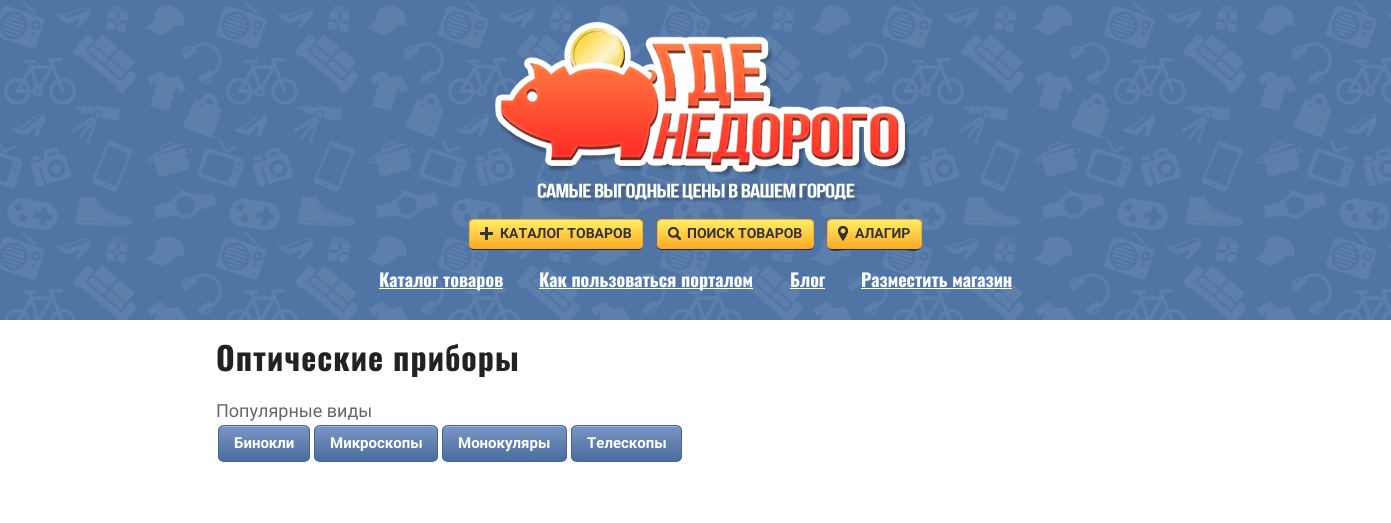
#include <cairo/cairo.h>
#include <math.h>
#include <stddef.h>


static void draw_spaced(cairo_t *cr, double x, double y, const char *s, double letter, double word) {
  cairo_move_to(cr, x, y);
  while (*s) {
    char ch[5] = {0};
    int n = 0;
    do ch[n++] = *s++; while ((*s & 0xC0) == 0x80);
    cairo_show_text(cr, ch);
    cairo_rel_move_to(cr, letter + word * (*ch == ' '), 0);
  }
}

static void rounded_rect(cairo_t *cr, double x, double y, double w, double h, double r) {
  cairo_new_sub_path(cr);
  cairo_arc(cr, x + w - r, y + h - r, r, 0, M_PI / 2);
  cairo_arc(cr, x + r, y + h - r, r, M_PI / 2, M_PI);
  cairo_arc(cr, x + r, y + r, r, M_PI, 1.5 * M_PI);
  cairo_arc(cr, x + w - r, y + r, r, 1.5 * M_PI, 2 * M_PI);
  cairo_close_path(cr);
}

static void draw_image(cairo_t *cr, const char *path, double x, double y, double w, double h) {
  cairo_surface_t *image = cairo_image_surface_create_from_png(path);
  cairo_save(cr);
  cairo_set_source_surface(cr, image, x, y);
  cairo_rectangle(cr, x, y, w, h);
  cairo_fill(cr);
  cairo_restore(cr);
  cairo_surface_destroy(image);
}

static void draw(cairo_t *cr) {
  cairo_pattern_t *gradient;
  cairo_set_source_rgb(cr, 1, 1, 1);
  cairo_paint(cr);
  cairo_set_source_rgb(cr, 80 / 255.0, 117 / 255.0, 165 / 255.0);
  cairo_rectangle(cr, 0, 0, 1391, 1);
  cairo_fill(cr);
  draw_image(cr, "images/1.png", 0, 1, 1391, 319);
  draw_image(cr, "images/2.png", 495, 22, 415, 182);
  cairo_set_source_rgb(cr, 31 / 255.0, 47 / 255.0, 71 / 255.0);
  cairo_new_path(cr);
  cairo_move_to(cr, 469, 244);
  cairo_curve_to(cr, 469, 247, 470, 249, 473, 250);
  cairo_line_to(cr, 638, 250);
  cairo_curve_to(cr, 641, 250, 643, 247, 643, 244);
  cairo_curve_to(cr, 643, 247, 641, 249, 638, 249);
  cairo_line_to(cr, 474, 249);
  cairo_curve_to(cr, 471, 249, 469, 247, 469, 244);
  cairo_close_path(cr);
  cairo_fill(cr);
  cairo_save(cr);
  rounded_rect(cr, 469, 219, 174, 30, 5);
  cairo_clip(cr);
  gradient = cairo_pattern_create_linear(556, 220, 556, 248);
  cairo_pattern_add_color_stop_rgba(gradient, 0.05, 1, 236 / 255.0, 100 / 255.0, 1);
  cairo_pattern_add_color_stop_rgba(gradient, 1, 1, 171 / 255.0, 35 / 255.0, 1);
  cairo_set_source(cr, gradient);
  cairo_pattern_destroy(gradient);
  cairo_rectangle(cr, 469, 220, 174, 28);
  cairo_fill(cr);
  cairo_restore(cr);
  rounded_rect(cr, 469.5, 219.5, 173, 29, 4.5);
  cairo_set_source_rgb(cr, 1, 170 / 255.0, 34 / 255.0);
  cairo_set_line_width(cr, 1);
  cairo_stroke(cr);
  draw_image(cr, "images/3.png", 480, 227, 13, 13);
  cairo_set_source_rgb(cr, 31 / 255.0, 47 / 255.0, 71 / 255.0);
  cairo_new_path(cr);
  cairo_move_to(cr, 657, 244);
  cairo_line_to(cr, 657, 245);
  cairo_curve_to(cr, 657, 248, 659, 250, 662, 250);
  cairo_line_to(cr, 809, 250);
  cairo_curve_to(cr, 812, 250, 814, 248, 814, 245);
  cairo_line_to(cr, 814, 244);
  cairo_curve_to(cr, 814, 247, 812, 249, 809, 249);
  cairo_line_to(cr, 662, 249);
  cairo_curve_to(cr, 659, 249, 657, 247, 657, 244);
  cairo_close_path(cr);
  cairo_fill(cr);
  cairo_save(cr);
  rounded_rect(cr, 657, 219, 157, 30, 5);
  cairo_clip(cr);
  gradient = cairo_pattern_create_linear(736, 220, 736, 248);
  cairo_pattern_add_color_stop_rgba(gradient, 0.05, 1, 236 / 255.0, 100 / 255.0, 1);
  cairo_pattern_add_color_stop_rgba(gradient, 1, 1, 171 / 255.0, 35 / 255.0, 1);
  cairo_set_source(cr, gradient);
  cairo_pattern_destroy(gradient);
  cairo_rectangle(cr, 657, 220, 157, 28);
  cairo_fill(cr);
  cairo_restore(cr);
  rounded_rect(cr, 657.5, 219.5, 156, 29, 4.5);
  cairo_set_source_rgb(cr, 1, 170 / 255.0, 34 / 255.0);
  cairo_stroke(cr);
  draw_image(cr, "images/4.png", 668, 227, 13, 13);
  cairo_set_source_rgb(cr, 31 / 255.0, 47 / 255.0, 71 / 255.0);
  cairo_new_path(cr);
  cairo_move_to(cr, 827, 244);
  cairo_curve_to(cr, 827, 254, 841, 250, 846, 250);
  cairo_line_to(cr, 903, 250);
  cairo_curve_to(cr, 908, 250, 922, 254, 922, 244);
  cairo_curve_to(cr, 922, 247, 920, 249, 917, 249);
  cairo_line_to(cr, 832, 249);
  cairo_curve_to(cr, 829, 249, 827, 247, 827, 244);
  cairo_close_path(cr);
  cairo_fill(cr);
  cairo_save(cr);
  rounded_rect(cr, 827, 219, 95, 30, 5);
  cairo_clip(cr);
  gradient = cairo_pattern_create_linear(875, 220, 875, 248);
  cairo_pattern_add_color_stop_rgba(gradient, 0.05, 1, 236 / 255.0, 100 / 255.0, 1);
  cairo_pattern_add_color_stop_rgba(gradient, 1, 1, 171 / 255.0, 35 / 255.0, 1);
  cairo_set_source(cr, gradient);
  cairo_pattern_destroy(gradient);
  cairo_rectangle(cr, 827, 220, 95, 28);
  cairo_fill(cr);
  cairo_restore(cr);
  rounded_rect(cr, 827.5, 219.5, 94, 29, 4.5);
  cairo_set_source_rgb(cr, 1, 170 / 255.0, 34 / 255.0);
  cairo_stroke(cr);
  draw_image(cr, "images/5.png", 838, 226, 10, 15);
  cairo_set_source_rgb(cr, 1, 1, 1);
  cairo_rectangle(cr, 379, 288, 124, 1);
  cairo_fill(cr);
  cairo_rectangle(cr, 539, 288, 214, 1);
  cairo_fill(cr);
  cairo_rectangle(cr, 790, 288, 35, 1);
  cairo_fill(cr);
  cairo_rectangle(cr, 861, 288, 151, 1);
  cairo_fill(cr);
  cairo_save(cr);
  rounded_rect(cr, 218, 425, 92, 37, 6);
  cairo_clip(cr);
  gradient = cairo_pattern_create_linear(264, 426, 264, 461);
  cairo_pattern_add_color_stop_rgba(gradient, 0.05, 120 / 255.0, 146 / 255.0, 194 / 255.0, 1);
  cairo_pattern_add_color_stop_rgba(gradient, 1, 71 / 255.0, 110 / 255.0, 158 / 255.0, 1);
  cairo_set_source(cr, gradient);
  cairo_pattern_destroy(gradient);
  cairo_rectangle(cr, 218, 426, 92, 35);
  cairo_fill(cr);
  cairo_restore(cr);
  cairo_set_source_rgb(cr, 159 / 255.0, 180 / 255.0, 242 / 255.0);
  cairo_new_path(cr);
  cairo_move_to(cr, 224, 427);
  cairo_line_to(cr, 304, 427);
  cairo_curve_to(cr, 307, 427, 309, 429, 309, 432);
  cairo_curve_to(cr, 309, 423, 296, 426, 291, 426);
  cairo_line_to(cr, 237, 426);
  cairo_curve_to(cr, 232, 426, 219, 423, 219, 432);
  cairo_curve_to(cr, 219, 429, 221, 427, 224, 427);
  cairo_close_path(cr);
  cairo_fill(cr);
  rounded_rect(cr, 218.5, 425.5, 91, 36, 5.5);
  cairo_set_source_rgb(cr, 78 / 255.0, 96 / 255.0, 150 / 255.0);
  cairo_stroke(cr);
  cairo_save(cr);
  rounded_rect(cr, 314, 425, 124, 37, 6);
  cairo_clip(cr);
  gradient = cairo_pattern_create_linear(376, 426, 376, 461);
  cairo_pattern_add_color_stop_rgba(gradient, 0.05, 120 / 255.0, 146 / 255.0, 194 / 255.0, 1);
  cairo_pattern_add_color_stop_rgba(gradient, 1, 71 / 255.0, 110 / 255.0, 158 / 255.0, 1);
  cairo_set_source(cr, gradient);
  cairo_pattern_destroy(gradient);
  cairo_rectangle(cr, 314, 426, 124, 35);
  cairo_fill(cr);
  cairo_restore(cr);
  cairo_set_source_rgb(cr, 159 / 255.0, 180 / 255.0, 242 / 255.0);
  cairo_new_path(cr);
  cairo_move_to(cr, 320, 427);
  cairo_line_to(cr, 432, 427);
  cairo_curve_to(cr, 435, 427, 437, 429, 437, 432);
  cairo_curve_to(cr, 437, 421, 418, 426, 413, 426);
  cairo_line_to(cr, 339, 426);
  cairo_curve_to(cr, 334, 426, 315, 421, 315, 432);
  cairo_curve_to(cr, 315, 429, 317, 427, 320, 427);
  cairo_close_path(cr);
  cairo_fill(cr);
  rounded_rect(cr, 314.5, 425.5, 123, 36, 5.5);
  cairo_set_source_rgb(cr, 78 / 255.0, 96 / 255.0, 150 / 255.0);
  cairo_stroke(cr);
  cairo_save(cr);
  rounded_rect(cr, 442, 425, 125, 37, 6);
  cairo_clip(cr);
  gradient = cairo_pattern_create_linear(505, 426, 505, 461);
  cairo_pattern_add_color_stop_rgba(gradient, 0.05, 120 / 255.0, 146 / 255.0, 194 / 255.0, 1);
  cairo_pattern_add_color_stop_rgba(gradient, 1, 71 / 255.0, 110 / 255.0, 158 / 255.0, 1);
  cairo_set_source(cr, gradient);
  cairo_pattern_destroy(gradient);
  cairo_rectangle(cr, 442, 426, 125, 35);
  cairo_fill(cr);
  cairo_restore(cr);
  cairo_set_source_rgb(cr, 159 / 255.0, 180 / 255.0, 242 / 255.0);
  cairo_new_path(cr);
  cairo_move_to(cr, 448, 427);
  cairo_line_to(cr, 561, 427);
  cairo_curve_to(cr, 564, 427, 566, 429, 566, 432);
  cairo_curve_to(cr, 566, 421, 547, 426, 542, 426);
  cairo_line_to(cr, 467, 426);
  cairo_curve_to(cr, 462, 426, 443, 421, 443, 432);
  cairo_curve_to(cr, 443, 429, 445, 427, 448, 427);
  cairo_close_path(cr);
  cairo_fill(cr);
  rounded_rect(cr, 442.5, 425.5, 124, 36, 5.5);
  cairo_set_source_rgb(cr, 78 / 255.0, 96 / 255.0, 150 / 255.0);
  cairo_stroke(cr);
  cairo_save(cr);
  rounded_rect(cr, 571, 425, 111, 37, 6);
  cairo_clip(cr);
  gradient = cairo_pattern_create_linear(627, 426, 627, 461);
  cairo_pattern_add_color_stop_rgba(gradient, 0.05, 120 / 255.0, 146 / 255.0, 194 / 255.0, 1);
  cairo_pattern_add_color_stop_rgba(gradient, 1, 71 / 255.0, 110 / 255.0, 158 / 255.0, 1);
  cairo_set_source(cr, gradient);
  cairo_pattern_destroy(gradient);
  cairo_rectangle(cr, 571, 426, 111, 35);
  cairo_fill(cr);
  cairo_restore(cr);
  cairo_set_source_rgb(cr, 159 / 255.0, 180 / 255.0, 242 / 255.0);
  cairo_new_path(cr);
  cairo_move_to(cr, 577, 427);
  cairo_line_to(cr, 676, 427);
  cairo_curve_to(cr, 679, 427, 681, 429, 681, 432);
  cairo_curve_to(cr, 681, 422, 665, 426, 660, 426);
  cairo_line_to(cr, 594, 426);
  cairo_curve_to(cr, 588, 426, 572, 422, 572, 432);
  cairo_curve_to(cr, 572, 429, 574, 427, 577, 427);
  cairo_close_path(cr);
  cairo_fill(cr);
  rounded_rect(cr, 571.5, 425.5, 110, 36, 5.5);
  cairo_set_source_rgb(cr, 78 / 255.0, 96 / 255.0, 150 / 255.0);
  cairo_stroke(cr);
  cairo_select_font_face(cr, "Roboto", CAIRO_FONT_SLANT_NORMAL, CAIRO_FONT_WEIGHT_BOLD);
  cairo_set_font_size(cr, 14);
  cairo_set_source_rgb(cr, 51 / 255.0, 51 / 255.0, 51 / 255.0);
  cairo_move_to(cr, 500, 238);
  cairo_show_text(cr, "КАТАЛОГ ТОВАРОВ");
  cairo_move_to(cr, 687, 238);
  cairo_show_text(cr, "ПОИСК ТОВАРОВ");
  cairo_move_to(cr, 855, 238);
  cairo_show_text(cr, "АЛАГИР");
  cairo_select_font_face(cr, "Oswald", CAIRO_FONT_SLANT_NORMAL, CAIRO_FONT_WEIGHT_BOLD);
  cairo_set_font_size(cr, 18);
  cairo_set_source_rgb(cr, 1, 1, 1);
  cairo_move_to(cr, 379, 287);
  cairo_show_text(cr, "Каталог товаров");
  cairo_move_to(cr, 539, 287);
  cairo_show_text(cr, "Как пользоваться порталом");
  cairo_move_to(cr, 790, 287);
  cairo_show_text(cr, "Блог");
  cairo_move_to(cr, 861, 287);
  cairo_show_text(cr, "Разместить магазин");
  cairo_set_font_size(cr, 32);
  cairo_set_source_rgb(cr, 34 / 255.0, 34 / 255.0, 34 / 255.0);
  draw_spaced(cr, 216, 371, "Оптические приборы", 1, 0);
  cairo_select_font_face(cr, "Roboto", CAIRO_FONT_SLANT_NORMAL, CAIRO_FONT_WEIGHT_NORMAL);
  cairo_set_font_size(cr, 18);
  cairo_set_source_rgb(cr, 102 / 255.0, 102 / 255.0, 102 / 255.0);
  cairo_move_to(cr, 216, 417);
  cairo_show_text(cr, "Популярные виды");
  cairo_select_font_face(cr, "Roboto", CAIRO_FONT_SLANT_NORMAL, CAIRO_FONT_WEIGHT_BOLD);
  cairo_set_font_size(cr, 15);
  cairo_set_source_rgb(cr, 1, 1, 1);
  cairo_move_to(cr, 234, 448);
  cairo_show_text(cr, "Бинокли");
  cairo_move_to(cr, 330, 448);
  cairo_show_text(cr, "Микроскопы");
  cairo_move_to(cr, 458, 448);
  cairo_show_text(cr, "Монокуляры");
  cairo_move_to(cr, 587, 448);
  cairo_show_text(cr, "Телескопы");
}

int main(void) {
  cairo_surface_t *surface = cairo_image_surface_create(CAIRO_FORMAT_RGB24, 1391, 523);
  cairo_t *cr = cairo_create(surface);
  cairo_font_options_t *options = cairo_font_options_create();
  cairo_font_options_set_hint_metrics(options, CAIRO_HINT_METRICS_OFF);
  cairo_font_options_set_hint_style(options, CAIRO_HINT_STYLE_NONE);
  cairo_set_font_options(cr, options);
  cairo_set_miter_limit(cr, 4);
  draw(cr);
  cairo_surface_write_to_png(surface, "out.png");
  cairo_font_options_destroy(options);
  cairo_destroy(cr);
  cairo_surface_destroy(surface);
  return 0;
}
